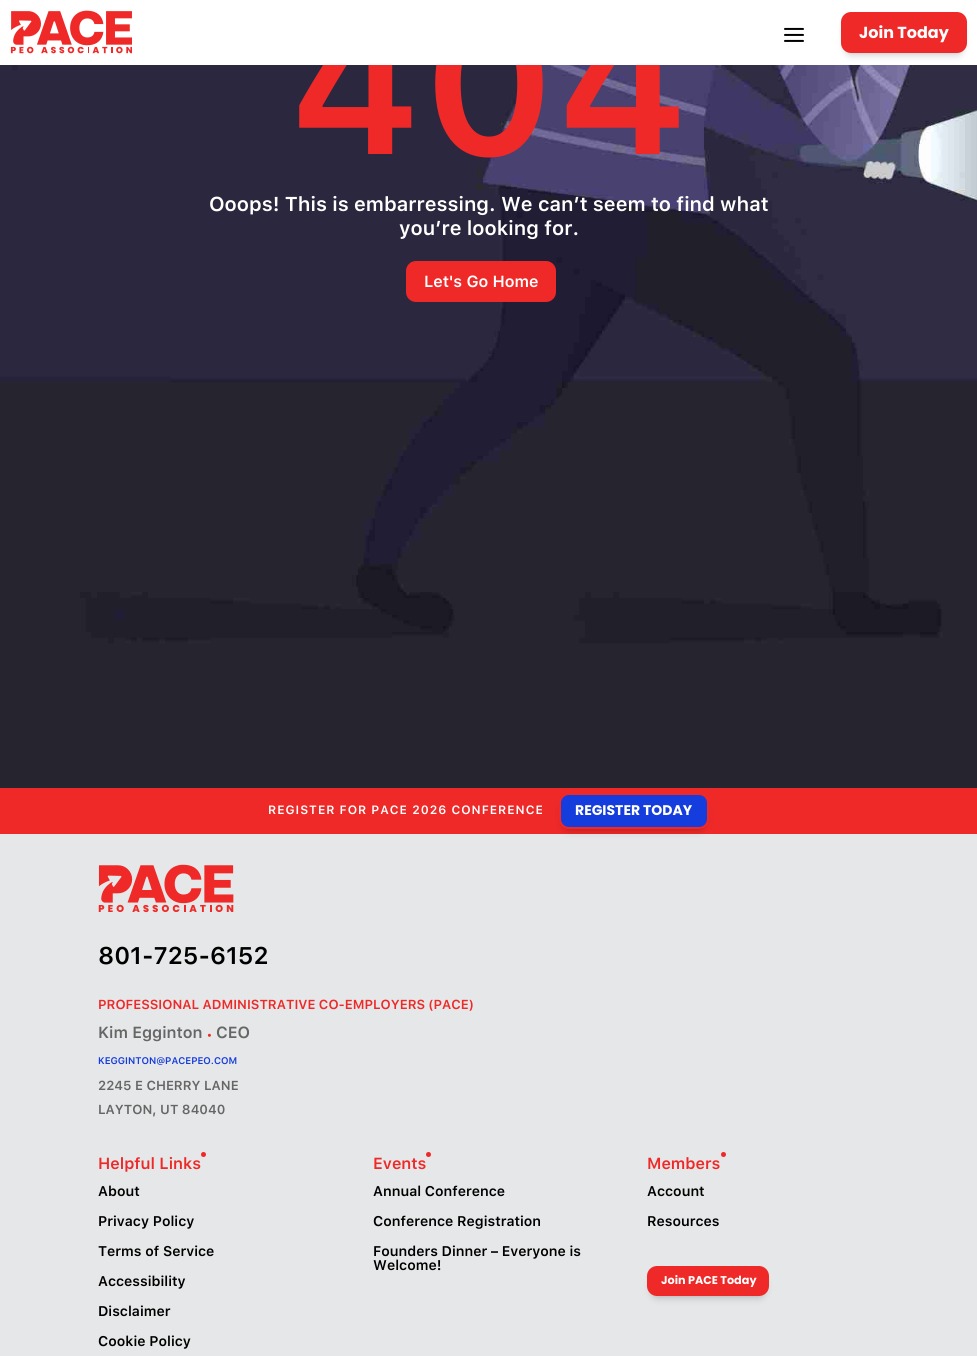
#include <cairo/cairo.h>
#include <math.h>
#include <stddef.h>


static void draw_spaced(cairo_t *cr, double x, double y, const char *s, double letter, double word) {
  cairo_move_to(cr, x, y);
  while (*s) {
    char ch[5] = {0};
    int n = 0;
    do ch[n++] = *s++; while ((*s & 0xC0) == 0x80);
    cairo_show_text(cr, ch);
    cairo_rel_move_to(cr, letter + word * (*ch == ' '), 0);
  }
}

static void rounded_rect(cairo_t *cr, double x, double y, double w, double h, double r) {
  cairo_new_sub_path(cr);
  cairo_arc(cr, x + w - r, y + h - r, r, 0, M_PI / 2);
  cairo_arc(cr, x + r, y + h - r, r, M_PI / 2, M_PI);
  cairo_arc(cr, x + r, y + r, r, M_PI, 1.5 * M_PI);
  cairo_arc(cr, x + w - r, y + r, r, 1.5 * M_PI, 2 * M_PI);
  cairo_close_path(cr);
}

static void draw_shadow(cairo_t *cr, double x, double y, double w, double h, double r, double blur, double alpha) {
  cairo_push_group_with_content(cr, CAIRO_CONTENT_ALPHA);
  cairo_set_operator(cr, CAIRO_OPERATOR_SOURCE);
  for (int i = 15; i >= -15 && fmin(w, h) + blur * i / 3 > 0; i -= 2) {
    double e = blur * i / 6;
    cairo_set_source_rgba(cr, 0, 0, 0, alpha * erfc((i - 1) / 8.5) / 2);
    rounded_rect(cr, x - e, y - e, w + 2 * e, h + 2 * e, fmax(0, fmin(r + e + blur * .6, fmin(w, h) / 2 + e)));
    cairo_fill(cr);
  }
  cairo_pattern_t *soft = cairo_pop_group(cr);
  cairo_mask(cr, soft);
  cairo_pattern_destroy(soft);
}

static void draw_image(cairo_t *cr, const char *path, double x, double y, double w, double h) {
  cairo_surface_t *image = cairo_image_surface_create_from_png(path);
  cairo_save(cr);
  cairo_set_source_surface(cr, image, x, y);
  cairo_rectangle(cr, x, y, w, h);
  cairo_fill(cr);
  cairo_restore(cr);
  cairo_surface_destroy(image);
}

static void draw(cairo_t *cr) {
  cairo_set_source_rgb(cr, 1, 1, 1);
  cairo_paint(cr);
  draw_image(cr, "images/1.png", 0, 65, 977, 723);
  cairo_set_source_rgb(cr, 238 / 255.0, 41 / 255.0, 40 / 255.0);
  rounded_rect(cr, 407, 262, 148, 39, 9);
  cairo_fill_preserve(cr);
  cairo_stroke(cr);
  cairo_rectangle(cr, 0, 788, 977, 46);
  cairo_fill(cr);
  cairo_set_source_rgb(cr, 230 / 255.0, 231 / 255.0, 232 / 255.0);
  cairo_rectangle(cr, 0, 834, 977, 522);
  cairo_fill(cr);
  cairo_set_source_rgb(cr, 0, 0, 0);
  draw_shadow(cr, 565, 805, 138, 24, 4, 4.5, 0.3);
  cairo_set_source_rgb(cr, 21 / 255.0, 60 / 255.0, 221 / 255.0);
  rounded_rect(cr, 560, 794, 148, 34, 9);
  cairo_fill_preserve(cr);
  cairo_set_source_rgb(cr, 238 / 255.0, 41 / 255.0, 40 / 255.0);
  cairo_stroke(cr);
  draw_image(cr, "images/2.png", 98, 864, 136, 49);
  cairo_arc(cr, 203.5, 1154.5, 2.5, 0, 2 * M_PI);
  cairo_fill(cr);
  cairo_arc(cr, 428.5, 1154.5, 2.5, 0, 2 * M_PI);
  cairo_fill(cr);
  cairo_arc(cr, 723.5, 1154.5, 2.5, 0, 2 * M_PI);
  cairo_fill(cr);
  cairo_set_source_rgb(cr, 0, 0, 0);
  draw_shadow(cr, 653, 1278, 110, 18, 4, 4.5, 0.3);
  cairo_set_source_rgb(cr, 238 / 255.0, 41 / 255.0, 40 / 255.0);
  rounded_rect(cr, 648, 1267, 120, 28, 9);
  cairo_fill_preserve(cr);
  cairo_stroke(cr);
  draw_image(cr, "images/3.png", 10, 10, 122, 44);
  draw_image(cr, "images/4.png", 784, 27, 20, 15);
  cairo_set_source_rgb(cr, 0, 0, 0);
  draw_shadow(cr, 847, 24, 114, 29, 4, 4.5, 0.3);
  cairo_set_source_rgb(cr, 238 / 255.0, 41 / 255.0, 40 / 255.0);
  rounded_rect(cr, 842, 13, 124, 39, 9);
  cairo_fill_preserve(cr);
  cairo_stroke(cr);
  cairo_select_font_face(cr, "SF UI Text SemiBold", CAIRO_FONT_SLANT_NORMAL, CAIRO_FONT_WEIGHT_NORMAL);
  cairo_set_font_size(cr, 200);
  cairo_move_to(cr, 288, 154);
  cairo_show_text(cr, "404");
  cairo_set_font_size(cr, 20);
  cairo_set_source_rgb(cr, 1, 1, 1);
  cairo_move_to(cr, 209, 211);
  cairo_show_text(cr, "Ooops! This is embarressing. We can’t seem to find what");
  cairo_move_to(cr, 399, 235);
  cairo_show_text(cr, "you’re looking for.");
  cairo_set_font_size(cr, 16);
  cairo_move_to(cr, 424, 287);
  cairo_show_text(cr, "Let's Go Home");
  cairo_set_font_size(cr, 12);
  draw_spaced(cr, 268, 814, "REGISTER FOR PACE 2026 CONFERENCE", 1, 0);
  cairo_select_font_face(cr, "Poppins", CAIRO_FONT_SLANT_NORMAL, CAIRO_FONT_WEIGHT_BOLD);
  cairo_set_font_size(cr, 14);
  cairo_move_to(cr, 575, 815);
  cairo_show_text(cr, "REGISTER TODAY");
  cairo_select_font_face(cr, "SF UI Text SemiBold", CAIRO_FONT_SLANT_NORMAL, CAIRO_FONT_WEIGHT_NORMAL);
  cairo_set_font_size(cr, 24);
  cairo_set_source_rgb(cr, 0, 0, 0);
  cairo_move_to(cr, 98, 964);
  cairo_show_text(cr, "801-725-6152");
  cairo_set_font_size(cr, 13);
  cairo_set_source_rgb(cr, 238 / 255.0, 41 / 255.0, 40 / 255.0);
  cairo_move_to(cr, 98, 1009);
  cairo_show_text(cr, "PROFESSIONAL ADMINISTRATIVE CO-EMPLOYERS (PACE)");
  cairo_set_font_size(cr, 16);
  cairo_set_source_rgb(cr, 102 / 255.0, 102 / 255.0, 102 / 255.0);
  cairo_move_to(cr, 98, 1038);
  cairo_show_text(cr, "Kim Egginton");
  cairo_set_font_size(cr, 9.6);
  cairo_set_source_rgb(cr, 238 / 255.0, 41 / 255.0, 40 / 255.0);
  cairo_move_to(cr, 207, 1038);
  cairo_show_text(cr, "•");
  cairo_set_font_size(cr, 16);
  cairo_set_source_rgb(cr, 102 / 255.0, 102 / 255.0, 102 / 255.0);
  cairo_move_to(cr, 216, 1038);
  cairo_show_text(cr, "CEO");
  cairo_set_font_size(cr, 9.6);
  cairo_set_source_rgb(cr, 21 / 255.0, 60 / 255.0, 221 / 255.0);
  cairo_move_to(cr, 98, 1064);
  cairo_show_text(cr, "KEGGINTON@PACEPEO.COM");
  cairo_set_font_size(cr, 13);
  cairo_set_source_rgb(cr, 102 / 255.0, 102 / 255.0, 102 / 255.0);
  cairo_move_to(cr, 98, 1090);
  cairo_show_text(cr, "2245 E CHERRY LANE");
  cairo_move_to(cr, 98, 1114);
  cairo_show_text(cr, "LAYTON, UT 84040");
  cairo_set_font_size(cr, 16);
  cairo_set_source_rgb(cr, 238 / 255.0, 41 / 255.0, 40 / 255.0);
  cairo_move_to(cr, 98, 1169);
  cairo_show_text(cr, "Helpful Links");
  cairo_set_font_size(cr, 14);
  cairo_set_source_rgb(cr, 0, 0, 0);
  cairo_move_to(cr, 98, 1196);
  cairo_show_text(cr, "About");
  cairo_move_to(cr, 98, 1226);
  cairo_show_text(cr, "Privacy Policy");
  cairo_move_to(cr, 98, 1256);
  cairo_show_text(cr, "Terms of Service");
  cairo_move_to(cr, 98, 1286);
  cairo_show_text(cr, "Accessibility");
  cairo_move_to(cr, 98, 1316);
  cairo_show_text(cr, "Disclaimer");
  cairo_move_to(cr, 98, 1346);
  cairo_show_text(cr, "Cookie Policy");
  cairo_set_font_size(cr, 16);
  cairo_set_source_rgb(cr, 238 / 255.0, 41 / 255.0, 40 / 255.0);
  cairo_move_to(cr, 373, 1169);
  cairo_show_text(cr, "Events");
  cairo_set_font_size(cr, 14);
  cairo_set_source_rgb(cr, 0, 0, 0);
  cairo_move_to(cr, 373, 1196);
  cairo_show_text(cr, "Annual Conference");
  cairo_move_to(cr, 373, 1226);
  cairo_show_text(cr, "Conference Registration");
  cairo_move_to(cr, 373, 1256);
  cairo_show_text(cr, "Founders Dinner – Everyone is");
  cairo_move_to(cr, 373, 1270);
  cairo_show_text(cr, "Welcome!");
  cairo_set_font_size(cr, 16);
  cairo_set_source_rgb(cr, 238 / 255.0, 41 / 255.0, 40 / 255.0);
  cairo_move_to(cr, 647, 1169);
  cairo_show_text(cr, "Members");
  cairo_set_font_size(cr, 14);
  cairo_set_source_rgb(cr, 0, 0, 0);
  cairo_move_to(cr, 647, 1196);
  cairo_show_text(cr, "Account");
  cairo_move_to(cr, 647, 1226);
  cairo_show_text(cr, "Resources");
  cairo_select_font_face(cr, "Poppins", CAIRO_FONT_SLANT_NORMAL, CAIRO_FONT_WEIGHT_BOLD);
  cairo_set_font_size(cr, 11.25);
  cairo_set_source_rgb(cr, 1, 1, 1);
  cairo_move_to(cr, 661, 1284);
  cairo_show_text(cr, "Join PACE Today");
  cairo_rectangle(cr, 322, 9, 338, 56);
  cairo_fill(cr);
  cairo_set_font_size(cr, 16);
  cairo_move_to(cr, 859, 38);
  cairo_show_text(cr, "Join Today");
}

int main(void) {
  cairo_surface_t *surface = cairo_image_surface_create(CAIRO_FORMAT_RGB24, 977, 1356);
  cairo_t *cr = cairo_create(surface);
  cairo_font_options_t *options = cairo_font_options_create();
  cairo_font_options_set_hint_metrics(options, CAIRO_HINT_METRICS_OFF);
  cairo_font_options_set_hint_style(options, CAIRO_HINT_STYLE_NONE);
  cairo_set_font_options(cr, options);
  cairo_set_miter_limit(cr, 4);
  draw(cr);
  cairo_surface_write_to_png(surface, "out.png");
  cairo_font_options_destroy(options);
  cairo_destroy(cr);
  cairo_surface_destroy(surface);
  return 0;
}
